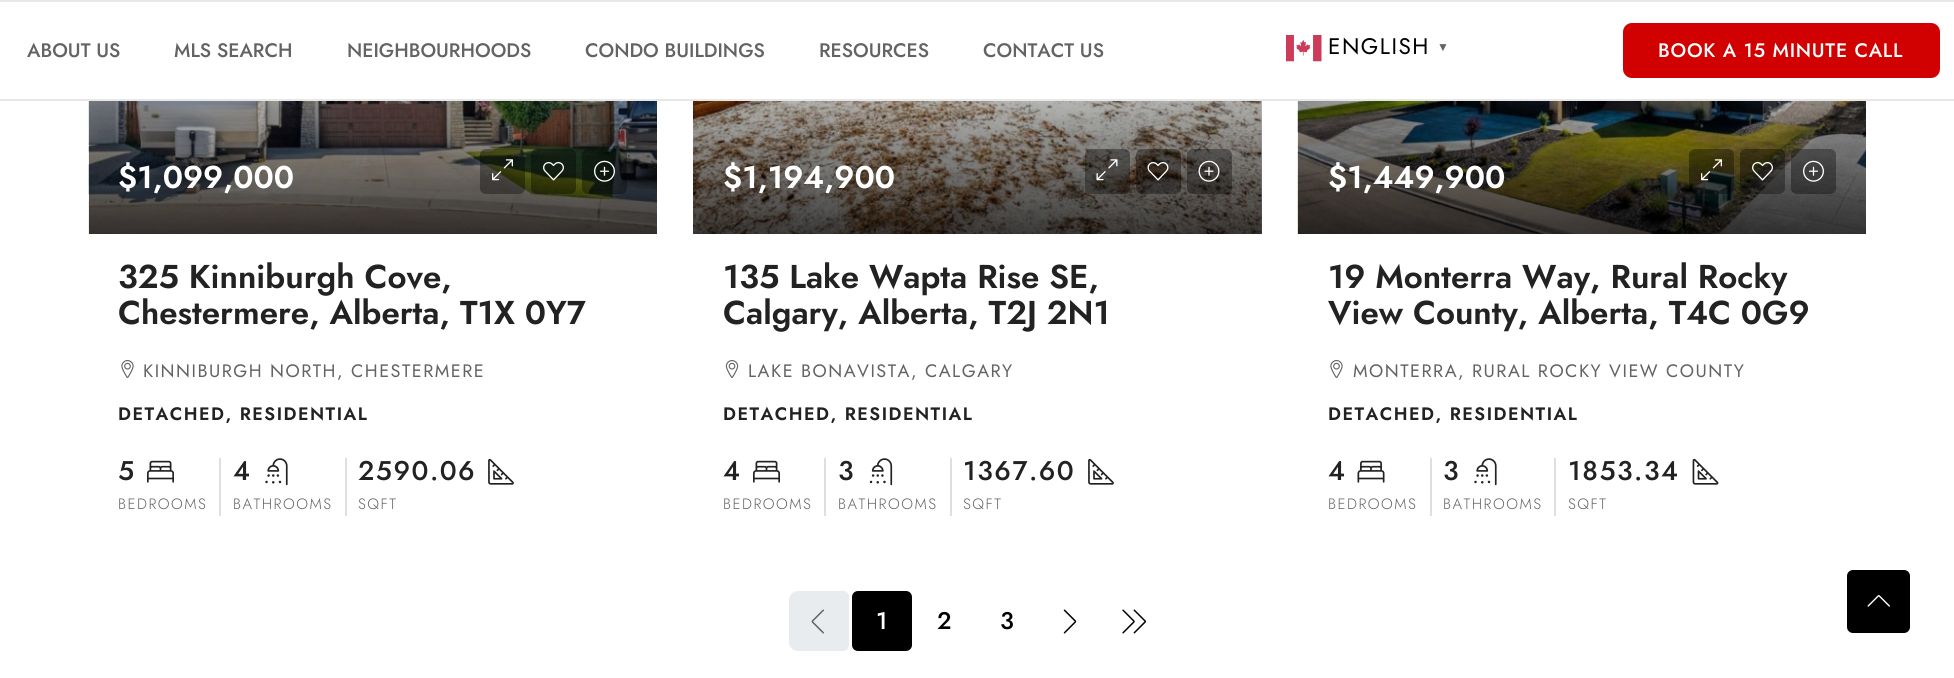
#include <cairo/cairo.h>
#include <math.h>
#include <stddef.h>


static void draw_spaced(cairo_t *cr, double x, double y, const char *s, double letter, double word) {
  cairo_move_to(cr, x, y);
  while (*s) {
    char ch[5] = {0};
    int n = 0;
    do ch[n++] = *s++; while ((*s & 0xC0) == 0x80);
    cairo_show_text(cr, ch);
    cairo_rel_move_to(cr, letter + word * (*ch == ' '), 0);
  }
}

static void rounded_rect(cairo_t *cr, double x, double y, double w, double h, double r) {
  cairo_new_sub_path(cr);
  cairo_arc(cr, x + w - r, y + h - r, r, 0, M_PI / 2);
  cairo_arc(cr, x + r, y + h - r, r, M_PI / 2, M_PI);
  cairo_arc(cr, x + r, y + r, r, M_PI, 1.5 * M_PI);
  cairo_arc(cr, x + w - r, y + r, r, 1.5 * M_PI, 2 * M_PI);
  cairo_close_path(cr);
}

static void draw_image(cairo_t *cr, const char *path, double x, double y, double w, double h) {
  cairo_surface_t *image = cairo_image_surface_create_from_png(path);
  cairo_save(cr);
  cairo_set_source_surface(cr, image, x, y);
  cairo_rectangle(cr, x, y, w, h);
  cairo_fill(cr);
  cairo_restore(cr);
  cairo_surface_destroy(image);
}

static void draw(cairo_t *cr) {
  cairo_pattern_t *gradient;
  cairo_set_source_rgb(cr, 1, 1, 1);
  cairo_paint(cr);
  cairo_set_source_rgb(cr, 231 / 255.0, 231 / 255.0, 231 / 255.0);
  cairo_rectangle(cr, 0, 0, 1954, 2);
  cairo_fill(cr);
  cairo_rectangle(cr, 0, 99, 1954, 2);
  cairo_fill(cr);
  draw_image(cr, "images/1.png", 1286, 35, 36, 27);
  cairo_set_source_rgb(cr, 209 / 255.0, 1 / 255.0, 1 / 255.0);
  rounded_rect(cr, 1623, 23, 317, 55, 9);
  cairo_fill(cr);
  draw_image(cr, "images/2.png", 88, 101, 569, 133);
  cairo_set_source_rgba(cr, 0, 0, 0, 0.35);
  rounded_rect(cr, 480, 149, 45, 45, 6);
  cairo_fill(cr);
  draw_image(cr, "images/3.png", 492, 159, 21, 22);
  rounded_rect(cr, 531, 149, 45, 45, 6);
  cairo_fill(cr);
  draw_image(cr, "images/4.png", 543, 162, 21, 19);
  rounded_rect(cr, 582, 149, 45, 45, 6);
  cairo_fill(cr);
  draw_image(cr, "images/5.png", 594, 160, 21, 22);
  draw_image(cr, "images/6.png", 121, 360, 13, 18);
  cairo_set_source_rgb(cr, 220 / 255.0, 224 / 255.0, 224 / 255.0);
  cairo_rectangle(cr, 219, 458, 2, 58);
  cairo_fill(cr);
  draw_image(cr, "images/7.png", 147, 460, 27, 23);
  cairo_rectangle(cr, 345, 458, 2, 58);
  cairo_fill(cr);
  draw_image(cr, "images/8.png", 265, 458, 23, 28);
  draw_image(cr, "images/9.png", 488, 458, 26, 27);
  draw_image(cr, "images/10.png", 693, 101, 569, 133);
  gradient = cairo_pattern_create_linear(977, -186, 977, 234);
  cairo_pattern_add_color_stop_rgba(gradient, 0, 0, 0, 0, 0);
  cairo_pattern_add_color_stop_rgba(gradient, 0.5, 0, 0, 0, 0);
  cairo_pattern_add_color_stop_rgba(gradient, 1, 0, 0, 0, 0.75);
  cairo_set_source(cr, gradient);
  cairo_pattern_destroy(gradient);
  cairo_rectangle(cr, 693, 101, 569, 133);
  cairo_fill(cr);
  cairo_set_source_rgba(cr, 0, 0, 0, 0.35);
  rounded_rect(cr, 1085, 149, 45, 45, 6);
  cairo_fill(cr);
  draw_image(cr, "images/11.png", 1096, 159, 22, 22);
  rounded_rect(cr, 1136, 149, 45, 45, 6);
  cairo_fill(cr);
  draw_image(cr, "images/12.png", 1147, 162, 22, 19);
  rounded_rect(cr, 1187, 149, 45, 45, 6);
  cairo_fill(cr);
  draw_image(cr, "images/13.png", 1198, 160, 22, 22);
  draw_image(cr, "images/14.png", 725, 360, 14, 18);
  cairo_set_source_rgb(cr, 220 / 255.0, 224 / 255.0, 224 / 255.0);
  cairo_rectangle(cr, 824, 458, 2, 58);
  cairo_fill(cr);
  draw_image(cr, "images/7.png", 753, 460, 27, 23);
  cairo_rectangle(cr, 950, 458, 2, 58);
  cairo_fill(cr);
  draw_image(cr, "images/15.png", 869, 458, 24, 28);
  draw_image(cr, "images/9.png", 1088, 458, 26, 27);
  draw_image(cr, "images/16.png", 1297, 101, 569, 133);
  cairo_set_source_rgba(cr, 0, 0, 0, 0.35);
  rounded_rect(cr, 1689, 149, 45, 45, 6);
  cairo_fill(cr);
  draw_image(cr, "images/17.png", 1701, 159, 21, 22);
  rounded_rect(cr, 1740, 149, 45, 45, 6);
  cairo_fill(cr);
  draw_image(cr, "images/18.png", 1752, 162, 21, 19);
  rounded_rect(cr, 1791, 149, 45, 45, 6);
  cairo_fill(cr);
  draw_image(cr, "images/19.png", 1803, 160, 21, 22);
  draw_image(cr, "images/6.png", 1330, 360, 13, 18);
  cairo_set_source_rgb(cr, 220 / 255.0, 224 / 255.0, 224 / 255.0);
  cairo_rectangle(cr, 1430, 458, 2, 58);
  cairo_fill(cr);
  draw_image(cr, "images/20.png", 1357, 460, 28, 23);
  cairo_rectangle(cr, 1554, 458, 2, 58);
  cairo_fill(cr);
  draw_image(cr, "images/8.png", 1474, 458, 23, 28);
  draw_image(cr, "images/21.png", 1692, 458, 27, 27);
  cairo_set_source_rgb(cr, 233 / 255.0, 236 / 255.0, 239 / 255.0);
  cairo_new_path(cr);
  cairo_move_to(cr, 798, 591);
  cairo_line_to(cr, 843, 591);
  cairo_curve_to(cr, 846.5, 591, 849, 593.5, 849, 597);
  cairo_line_to(cr, 849, 645);
  cairo_curve_to(cr, 849, 648.5, 846.5, 651, 843, 651);
  cairo_line_to(cr, 798, 651);
  cairo_curve_to(cr, 793, 651, 789, 647, 789, 642);
  cairo_line_to(cr, 789, 600);
  cairo_curve_to(cr, 789, 595, 793, 591, 798, 591);
  cairo_close_path(cr);
  cairo_fill(cr);
  draw_image(cr, "images/22.png", 811, 609, 13, 25);
  cairo_set_source_rgb(cr, 0, 0, 0);
  rounded_rect(cr, 853, 592, 58, 58, 5);
  cairo_fill_preserve(cr);
  cairo_stroke(cr);
  draw_image(cr, "images/23.png", 1063, 609, 14, 25);
  draw_image(cr, "images/24.png", 1122, 609, 24, 25);
  rounded_rect(cr, 1848, 571, 61, 61, 5);
  cairo_fill_preserve(cr);
  cairo_stroke(cr);
  draw_image(cr, "images/25.png", 1867, 595, 23, 12);
  cairo_select_font_face(cr, "Jost Medium", CAIRO_FONT_SLANT_NORMAL, CAIRO_FONT_WEIGHT_NORMAL);
  cairo_set_font_size(cr, 19.5);
  cairo_set_source_rgb(cr, 99 / 255.0, 99 / 255.0, 99 / 255.0);
  cairo_move_to(cr, 27, 57);
  cairo_show_text(cr, "ABOUT US");
  cairo_move_to(cr, 174, 57);
  cairo_show_text(cr, "MLS SEARCH");
  cairo_move_to(cr, 347, 57);
  cairo_show_text(cr, "NEIGHBOURHOODS");
  cairo_move_to(cr, 585, 57);
  cairo_show_text(cr, "CONDO BUILDINGS");
  cairo_move_to(cr, 819, 57);
  cairo_show_text(cr, "RESOURCES");
  cairo_move_to(cr, 983, 57);
  cairo_show_text(cr, "CONTACT US");
  cairo_select_font_face(cr, "Jost", CAIRO_FONT_SLANT_NORMAL, CAIRO_FONT_WEIGHT_NORMAL);
  cairo_set_font_size(cr, 22.5);
  cairo_set_source_rgb(cr, 0, 0, 0);
  draw_spaced(cr, 1328, 54, "ENGLISH", 1.5, 0);
  cairo_select_font_face(cr, "Liberation Sans", CAIRO_FONT_SLANT_NORMAL, CAIRO_FONT_WEIGHT_BOLD);
  cairo_set_font_size(cr, 12);
  cairo_set_source_rgb(cr, 99 / 255.0, 99 / 255.0, 99 / 255.0);
  draw_spaced(cr, 1437, 51, "▼", 1.5, 0);
  cairo_select_font_face(cr, "Jost Medium", CAIRO_FONT_SLANT_NORMAL, CAIRO_FONT_WEIGHT_NORMAL);
  cairo_set_font_size(cr, 19.5);
  cairo_set_source_rgb(cr, 1, 1, 1);
  draw_spaced(cr, 1658, 57, "BOOK A 15 MINUTE CALL", 0.75, 0);
  cairo_select_font_face(cr, "Jost SemiBold", CAIRO_FONT_SLANT_NORMAL, CAIRO_FONT_WEIGHT_NORMAL);
  cairo_set_font_size(cr, 31.5);
  cairo_move_to(cr, 118, 188);
  cairo_show_text(cr, "$1,099,000");
  cairo_set_font_size(cr, 33);
  cairo_set_source_rgb(cr, 34 / 255.0, 34 / 255.0, 34 / 255.0);
  cairo_move_to(cr, 118, 288);
  cairo_show_text(cr, "325 Kinniburgh Cove,");
  cairo_move_to(cr, 118, 324);
  cairo_show_text(cr, "Chestermere, Alberta, T1X 0Y7");
  cairo_select_font_face(cr, "Jost", CAIRO_FONT_SLANT_NORMAL, CAIRO_FONT_WEIGHT_NORMAL);
  cairo_set_font_size(cr, 18);
  cairo_set_source_rgb(cr, 99 / 255.0, 99 / 255.0, 99 / 255.0);
  draw_spaced(cr, 143, 377, "KINNIBURGH NORTH, CHESTERMERE", 1.5, 0);
  cairo_select_font_face(cr, "Jost SemiBold", CAIRO_FONT_SLANT_NORMAL, CAIRO_FONT_WEIGHT_NORMAL);
  cairo_set_source_rgb(cr, 34 / 255.0, 34 / 255.0, 34 / 255.0);
  draw_spaced(cr, 118, 420, "DETACHED, RESIDENTIAL", 1.5, 0);
  cairo_select_font_face(cr, "Jost Medium", CAIRO_FONT_SLANT_NORMAL, CAIRO_FONT_WEIGHT_NORMAL);
  cairo_set_font_size(cr, 27);
  draw_spaced(cr, 118, 480, "5", 1.5, 0);
  cairo_select_font_face(cr, "Jost Light", CAIRO_FONT_SLANT_NORMAL, CAIRO_FONT_WEIGHT_NORMAL);
  cairo_set_font_size(cr, 15);
  cairo_set_source_rgb(cr, 99 / 255.0, 99 / 255.0, 99 / 255.0);
  draw_spaced(cr, 118, 509, "BEDROOMS", 1.5, 0);
  cairo_select_font_face(cr, "Jost Medium", CAIRO_FONT_SLANT_NORMAL, CAIRO_FONT_WEIGHT_NORMAL);
  cairo_set_font_size(cr, 27);
  cairo_set_source_rgb(cr, 34 / 255.0, 34 / 255.0, 34 / 255.0);
  draw_spaced(cr, 233, 480, "4", 1.5, 0);
  cairo_select_font_face(cr, "Jost Light", CAIRO_FONT_SLANT_NORMAL, CAIRO_FONT_WEIGHT_NORMAL);
  cairo_set_font_size(cr, 15);
  cairo_set_source_rgb(cr, 99 / 255.0, 99 / 255.0, 99 / 255.0);
  draw_spaced(cr, 233, 509, "BATHROOMS", 1.5, 0);
  cairo_select_font_face(cr, "Jost Medium", CAIRO_FONT_SLANT_NORMAL, CAIRO_FONT_WEIGHT_NORMAL);
  cairo_set_font_size(cr, 27);
  cairo_set_source_rgb(cr, 34 / 255.0, 34 / 255.0, 34 / 255.0);
  draw_spaced(cr, 358, 480, "2590.06", 1.5, 0);
  cairo_select_font_face(cr, "Jost Light", CAIRO_FONT_SLANT_NORMAL, CAIRO_FONT_WEIGHT_NORMAL);
  cairo_set_font_size(cr, 15);
  cairo_set_source_rgb(cr, 99 / 255.0, 99 / 255.0, 99 / 255.0);
  draw_spaced(cr, 358, 509, "SQFT", 1.5, 0);
  cairo_select_font_face(cr, "Jost SemiBold", CAIRO_FONT_SLANT_NORMAL, CAIRO_FONT_WEIGHT_NORMAL);
  cairo_set_font_size(cr, 31.5);
  cairo_set_source_rgb(cr, 1, 1, 1);
  cairo_move_to(cr, 723, 188);
  cairo_show_text(cr, "$1,194,900");
  cairo_set_font_size(cr, 33);
  cairo_set_source_rgb(cr, 34 / 255.0, 34 / 255.0, 34 / 255.0);
  cairo_move_to(cr, 723, 288);
  cairo_show_text(cr, "135 Lake Wapta Rise SE,");
  cairo_move_to(cr, 723, 324);
  cairo_show_text(cr, "Calgary, Alberta, T2J 2N1");
  cairo_select_font_face(cr, "Jost", CAIRO_FONT_SLANT_NORMAL, CAIRO_FONT_WEIGHT_NORMAL);
  cairo_set_font_size(cr, 18);
  cairo_set_source_rgb(cr, 99 / 255.0, 99 / 255.0, 99 / 255.0);
  draw_spaced(cr, 748, 377, "LAKE BONAVISTA, CALGARY", 1.5, 0);
  cairo_select_font_face(cr, "Jost SemiBold", CAIRO_FONT_SLANT_NORMAL, CAIRO_FONT_WEIGHT_NORMAL);
  cairo_set_source_rgb(cr, 34 / 255.0, 34 / 255.0, 34 / 255.0);
  draw_spaced(cr, 723, 420, "DETACHED, RESIDENTIAL", 1.5, 0);
  cairo_select_font_face(cr, "Jost Medium", CAIRO_FONT_SLANT_NORMAL, CAIRO_FONT_WEIGHT_NORMAL);
  cairo_set_font_size(cr, 27);
  draw_spaced(cr, 723, 480, "4", 1.5, 0);
  cairo_select_font_face(cr, "Jost Light", CAIRO_FONT_SLANT_NORMAL, CAIRO_FONT_WEIGHT_NORMAL);
  cairo_set_font_size(cr, 15);
  cairo_set_source_rgb(cr, 99 / 255.0, 99 / 255.0, 99 / 255.0);
  draw_spaced(cr, 723, 509, "BEDROOMS", 1.5, 0);
  cairo_select_font_face(cr, "Jost Medium", CAIRO_FONT_SLANT_NORMAL, CAIRO_FONT_WEIGHT_NORMAL);
  cairo_set_font_size(cr, 27);
  cairo_set_source_rgb(cr, 34 / 255.0, 34 / 255.0, 34 / 255.0);
  draw_spaced(cr, 838, 480, "3", 1.5, 0);
  cairo_select_font_face(cr, "Jost Light", CAIRO_FONT_SLANT_NORMAL, CAIRO_FONT_WEIGHT_NORMAL);
  cairo_set_font_size(cr, 15);
  cairo_set_source_rgb(cr, 99 / 255.0, 99 / 255.0, 99 / 255.0);
  draw_spaced(cr, 838, 509, "BATHROOMS", 1.5, 0);
  cairo_select_font_face(cr, "Jost Medium", CAIRO_FONT_SLANT_NORMAL, CAIRO_FONT_WEIGHT_NORMAL);
  cairo_set_font_size(cr, 27);
  cairo_set_source_rgb(cr, 34 / 255.0, 34 / 255.0, 34 / 255.0);
  draw_spaced(cr, 963, 480, "1367.60", 1.5, 0);
  cairo_select_font_face(cr, "Jost Light", CAIRO_FONT_SLANT_NORMAL, CAIRO_FONT_WEIGHT_NORMAL);
  cairo_set_font_size(cr, 15);
  cairo_set_source_rgb(cr, 99 / 255.0, 99 / 255.0, 99 / 255.0);
  draw_spaced(cr, 963, 509, "SQFT", 1.5, 0);
  cairo_select_font_face(cr, "Jost SemiBold", CAIRO_FONT_SLANT_NORMAL, CAIRO_FONT_WEIGHT_NORMAL);
  cairo_set_font_size(cr, 31.5);
  cairo_set_source_rgb(cr, 1, 1, 1);
  cairo_move_to(cr, 1328, 188);
  cairo_show_text(cr, "$1,449,900");
  cairo_set_font_size(cr, 33);
  cairo_set_source_rgb(cr, 34 / 255.0, 34 / 255.0, 34 / 255.0);
  cairo_move_to(cr, 1328, 288);
  cairo_show_text(cr, "19 Monterra Way, Rural Rocky");
  cairo_move_to(cr, 1328, 324);
  cairo_show_text(cr, "View County, Alberta, T4C 0G9");
  cairo_select_font_face(cr, "Jost", CAIRO_FONT_SLANT_NORMAL, CAIRO_FONT_WEIGHT_NORMAL);
  cairo_set_font_size(cr, 18);
  cairo_set_source_rgb(cr, 99 / 255.0, 99 / 255.0, 99 / 255.0);
  draw_spaced(cr, 1353, 377, "MONTERRA, RURAL ROCKY VIEW COUNTY", 1.5, 0);
  cairo_select_font_face(cr, "Jost SemiBold", CAIRO_FONT_SLANT_NORMAL, CAIRO_FONT_WEIGHT_NORMAL);
  cairo_set_source_rgb(cr, 34 / 255.0, 34 / 255.0, 34 / 255.0);
  draw_spaced(cr, 1328, 420, "DETACHED, RESIDENTIAL", 1.5, 0);
  cairo_select_font_face(cr, "Jost Medium", CAIRO_FONT_SLANT_NORMAL, CAIRO_FONT_WEIGHT_NORMAL);
  cairo_set_font_size(cr, 27);
  draw_spaced(cr, 1328, 480, "4", 1.5, 0);
  cairo_select_font_face(cr, "Jost Light", CAIRO_FONT_SLANT_NORMAL, CAIRO_FONT_WEIGHT_NORMAL);
  cairo_set_font_size(cr, 15);
  cairo_set_source_rgb(cr, 99 / 255.0, 99 / 255.0, 99 / 255.0);
  draw_spaced(cr, 1328, 509, "BEDROOMS", 1.5, 0);
  cairo_select_font_face(cr, "Jost Medium", CAIRO_FONT_SLANT_NORMAL, CAIRO_FONT_WEIGHT_NORMAL);
  cairo_set_font_size(cr, 27);
  cairo_set_source_rgb(cr, 34 / 255.0, 34 / 255.0, 34 / 255.0);
  draw_spaced(cr, 1443, 480, "3", 1.5, 0);
  cairo_select_font_face(cr, "Jost Light", CAIRO_FONT_SLANT_NORMAL, CAIRO_FONT_WEIGHT_NORMAL);
  cairo_set_font_size(cr, 15);
  cairo_set_source_rgb(cr, 99 / 255.0, 99 / 255.0, 99 / 255.0);
  draw_spaced(cr, 1443, 509, "BATHROOMS", 1.5, 0);
  cairo_select_font_face(cr, "Jost Medium", CAIRO_FONT_SLANT_NORMAL, CAIRO_FONT_WEIGHT_NORMAL);
  cairo_set_font_size(cr, 27);
  cairo_set_source_rgb(cr, 34 / 255.0, 34 / 255.0, 34 / 255.0);
  draw_spaced(cr, 1568, 480, "1853.34", 1.5, 0);
  cairo_select_font_face(cr, "Jost Light", CAIRO_FONT_SLANT_NORMAL, CAIRO_FONT_WEIGHT_NORMAL);
  cairo_set_font_size(cr, 15);
  cairo_set_source_rgb(cr, 99 / 255.0, 99 / 255.0, 99 / 255.0);
  draw_spaced(cr, 1568, 509, "SQFT", 1.5, 0);
  cairo_select_font_face(cr, "Jost Medium", CAIRO_FONT_SLANT_NORMAL, CAIRO_FONT_WEIGHT_NORMAL);
  cairo_set_font_size(cr, 24);
  cairo_set_source_rgb(cr, 1, 1, 1);
  cairo_move_to(cr, 876, 629);
  cairo_show_text(cr, "1");
  cairo_set_source_rgb(cr, 0, 0, 0);
  cairo_move_to(cr, 937, 629);
  cairo_show_text(cr, "2");
  cairo_move_to(cr, 1000, 629);
  cairo_show_text(cr, "3");
}

int main(void) {
  cairo_surface_t *surface = cairo_image_surface_create(CAIRO_FORMAT_RGB24, 1954, 678);
  cairo_t *cr = cairo_create(surface);
  cairo_font_options_t *options = cairo_font_options_create();
  cairo_font_options_set_hint_metrics(options, CAIRO_HINT_METRICS_OFF);
  cairo_font_options_set_hint_style(options, CAIRO_HINT_STYLE_NONE);
  cairo_set_font_options(cr, options);
  cairo_set_miter_limit(cr, 4);
  draw(cr);
  cairo_surface_write_to_png(surface, "out.png");
  cairo_font_options_destroy(options);
  cairo_destroy(cr);
  cairo_surface_destroy(surface);
  return 0;
}
